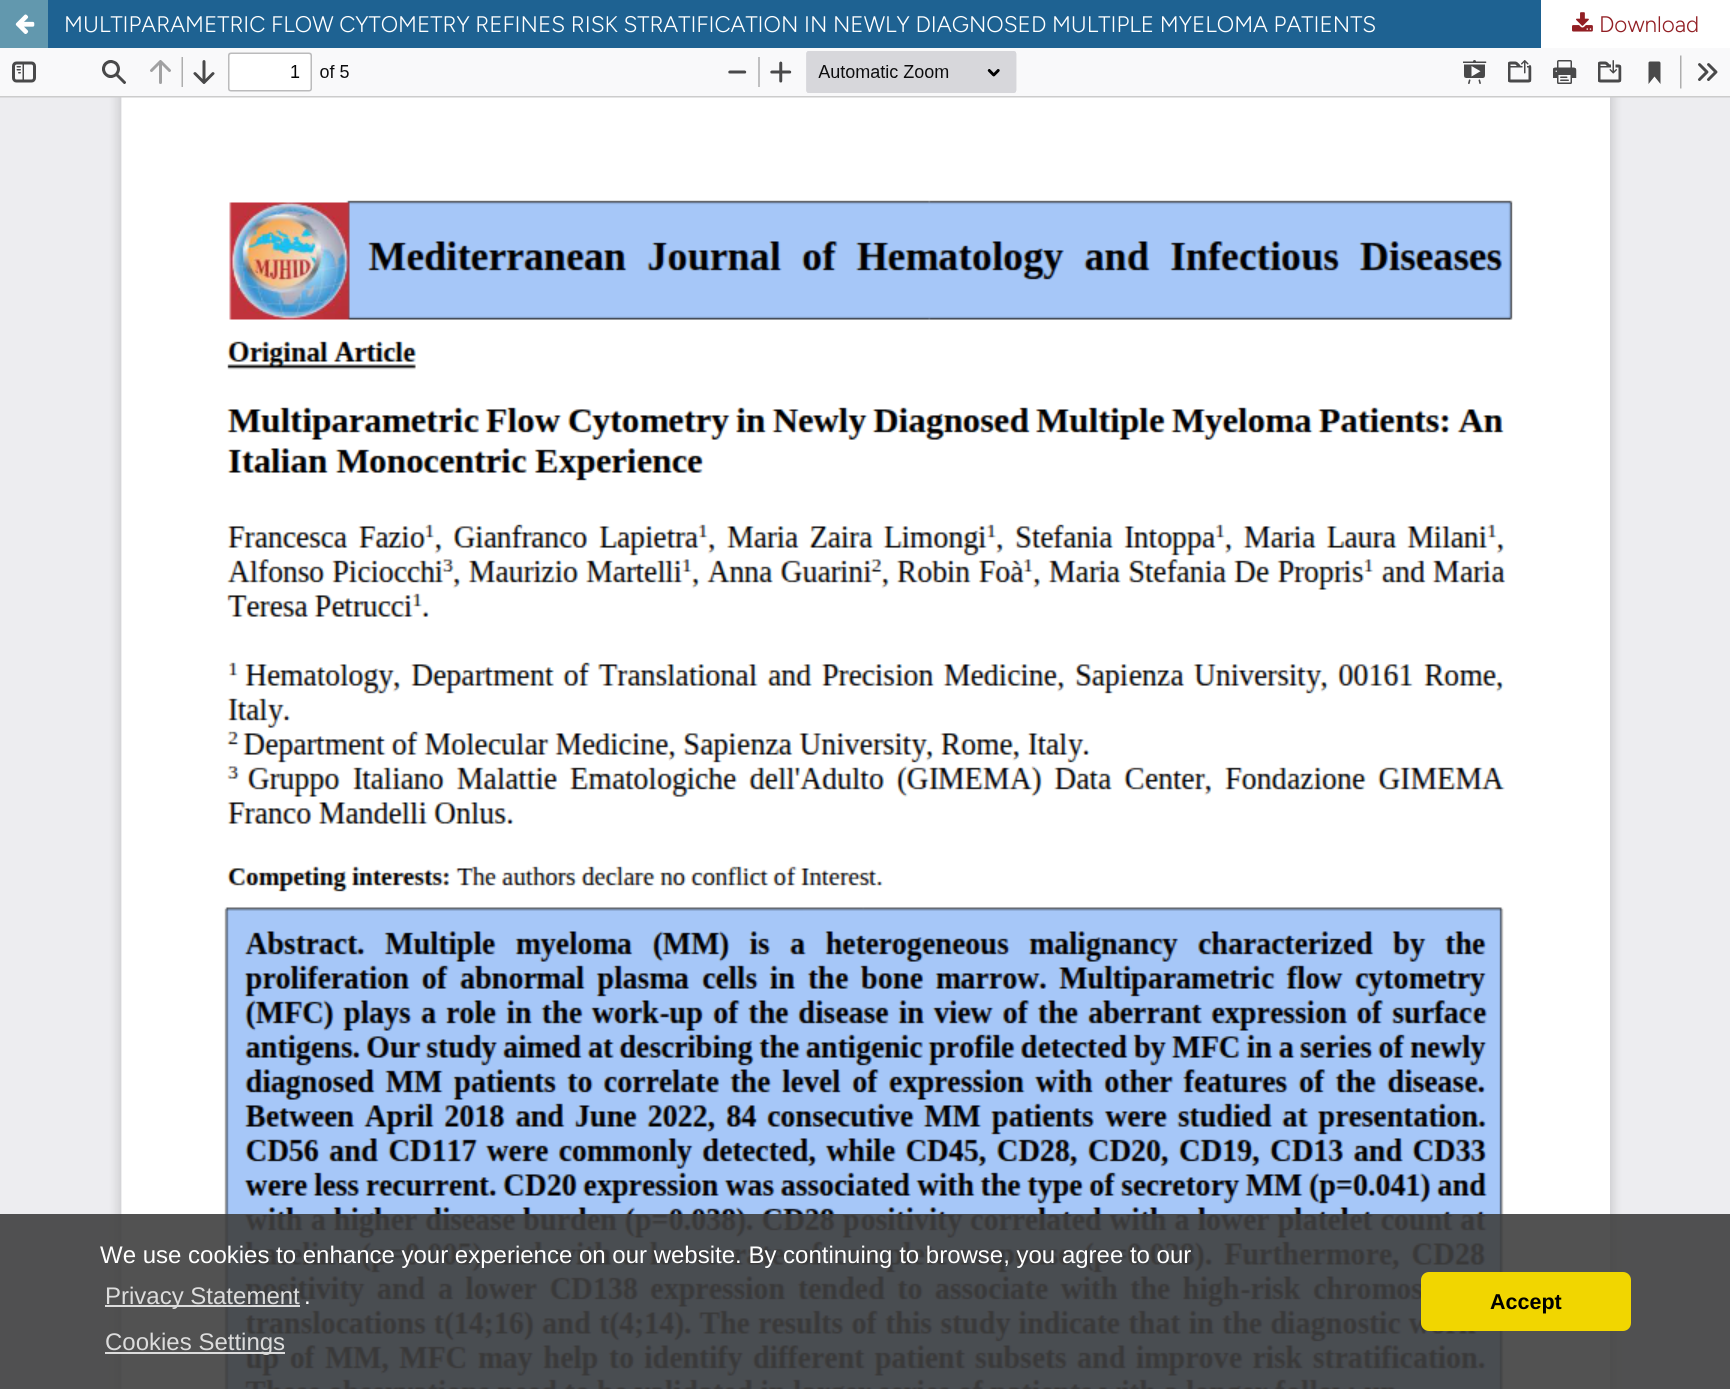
#include <cairo/cairo.h>
#include <math.h>
#include <stddef.h>


static void rounded_rect(cairo_t *cr, double x, double y, double w, double h, double r) {
  cairo_new_sub_path(cr);
  cairo_arc(cr, x + w - r, y + h - r, r, 0, M_PI / 2);
  cairo_arc(cr, x + r, y + h - r, r, M_PI / 2, M_PI);
  cairo_arc(cr, x + r, y + r, r, M_PI, 1.5 * M_PI);
  cairo_arc(cr, x + w - r, y + r, r, 1.5 * M_PI, 2 * M_PI);
  cairo_close_path(cr);
}

static void draw_image(cairo_t *cr, const char *path, double x, double y, double w, double h) {
  cairo_surface_t *image = cairo_image_surface_create_from_png(path);
  cairo_save(cr);
  cairo_set_source_surface(cr, image, x, y);
  cairo_rectangle(cr, x, y, w, h);
  cairo_fill(cr);
  cairo_restore(cr);
  cairo_surface_destroy(image);
}

static void draw(cairo_t *cr) {
  cairo_set_source_rgb(cr, 1, 1, 1);
  cairo_paint(cr);
  cairo_set_source_rgb(cr, 30 / 255.0, 98 / 255.0, 146 / 255.0);
  cairo_rectangle(cr, 48, 0, 1493, 48);
  cairo_fill(cr);
  cairo_set_source_rgb(cr, 98 / 255.0, 152 / 255.0, 174 / 255.0);
  cairo_rectangle(cr, 0, 0, 48, 48);
  cairo_fill(cr);
  draw_image(cr, "images/1.png", 15, 14, 20, 20);
  draw_image(cr, "images/2.png", 1572, 12, 21, 20);
  draw_image(cr, "images/3.png", 0, 48, 1730, 1341);
  cairo_set_source_rgba(cr, 64 / 255.0, 64 / 255.0, 64 / 255.0, 0.9);
  cairo_rectangle(cr, 0, 1214, 1730, 175);
  cairo_fill(cr);
  cairo_set_source_rgba(cr, 1, 1, 1, 0.8);
  cairo_rectangle(cr, 105, 1305, 195, 2);
  cairo_fill(cr);
  cairo_rectangle(cr, 105, 1352, 180, 2);
  cairo_fill(cr);
  cairo_set_source_rgb(cr, 241 / 255.0, 214 / 255.0, 0);
  rounded_rect(cr, 1421, 1272, 210, 59, 8);
  cairo_fill(cr);
  cairo_select_font_face(cr, "Figtree Light", CAIRO_FONT_SLANT_NORMAL, CAIRO_FONT_WEIGHT_NORMAL);
  cairo_set_font_size(cr, 22.5);
  cairo_set_source_rgb(cr, 1, 1, 1);
  cairo_move_to(cr, 64, 32);
  cairo_show_text(cr, "MULTIPARAMETRIC FLOW CYTOMETRY REFINES RISK STRATIFICATION IN NEWLY DIAGNOSED MULTIPLE MYELOMA PATIENTS");
  cairo_set_source_rgb(cr, 146 / 255.0, 31 / 255.0, 36 / 255.0);
  cairo_move_to(cr, 1599, 32);
  cairo_show_text(cr, "Download");
  cairo_select_font_face(cr, "Liberation Sans", CAIRO_FONT_SLANT_NORMAL, CAIRO_FONT_WEIGHT_NORMAL);
  cairo_set_font_size(cr, 24);
  cairo_set_source_rgb(cr, 1, 1, 1);
  cairo_move_to(cr, 100, 1263);
  cairo_show_text(cr, "We use cookies to enhance your experience on our website. By continuing to browse, you agree to our");
  cairo_set_source_rgb(cr, 220 / 255.0, 220 / 255.0, 220 / 255.0);
  cairo_move_to(cr, 105, 1304);
  cairo_show_text(cr, "Privacy Statement");
  cairo_set_source_rgb(cr, 1, 1, 1);
  cairo_move_to(cr, 304, 1304);
  cairo_show_text(cr, ".");
  cairo_set_source_rgb(cr, 220 / 255.0, 220 / 255.0, 220 / 255.0);
  cairo_move_to(cr, 105, 1350);
  cairo_show_text(cr, "Cookies Settings");
  cairo_select_font_face(cr, "Liberation Sans", CAIRO_FONT_SLANT_NORMAL, CAIRO_FONT_WEIGHT_BOLD);
  cairo_set_font_size(cr, 21.5);
  cairo_set_source_rgb(cr, 0, 0, 0);
  cairo_move_to(cr, 1490, 1309);
  cairo_show_text(cr, "Accept");
}

int main(void) {
  cairo_surface_t *surface = cairo_image_surface_create(CAIRO_FORMAT_RGB24, 1730, 1389);
  cairo_t *cr = cairo_create(surface);
  cairo_font_options_t *options = cairo_font_options_create();
  cairo_font_options_set_hint_metrics(options, CAIRO_HINT_METRICS_OFF);
  cairo_font_options_set_hint_style(options, CAIRO_HINT_STYLE_NONE);
  cairo_set_font_options(cr, options);
  cairo_set_miter_limit(cr, 4);
  draw(cr);
  cairo_surface_write_to_png(surface, "out.png");
  cairo_font_options_destroy(options);
  cairo_destroy(cr);
  cairo_surface_destroy(surface);
  return 0;
}
